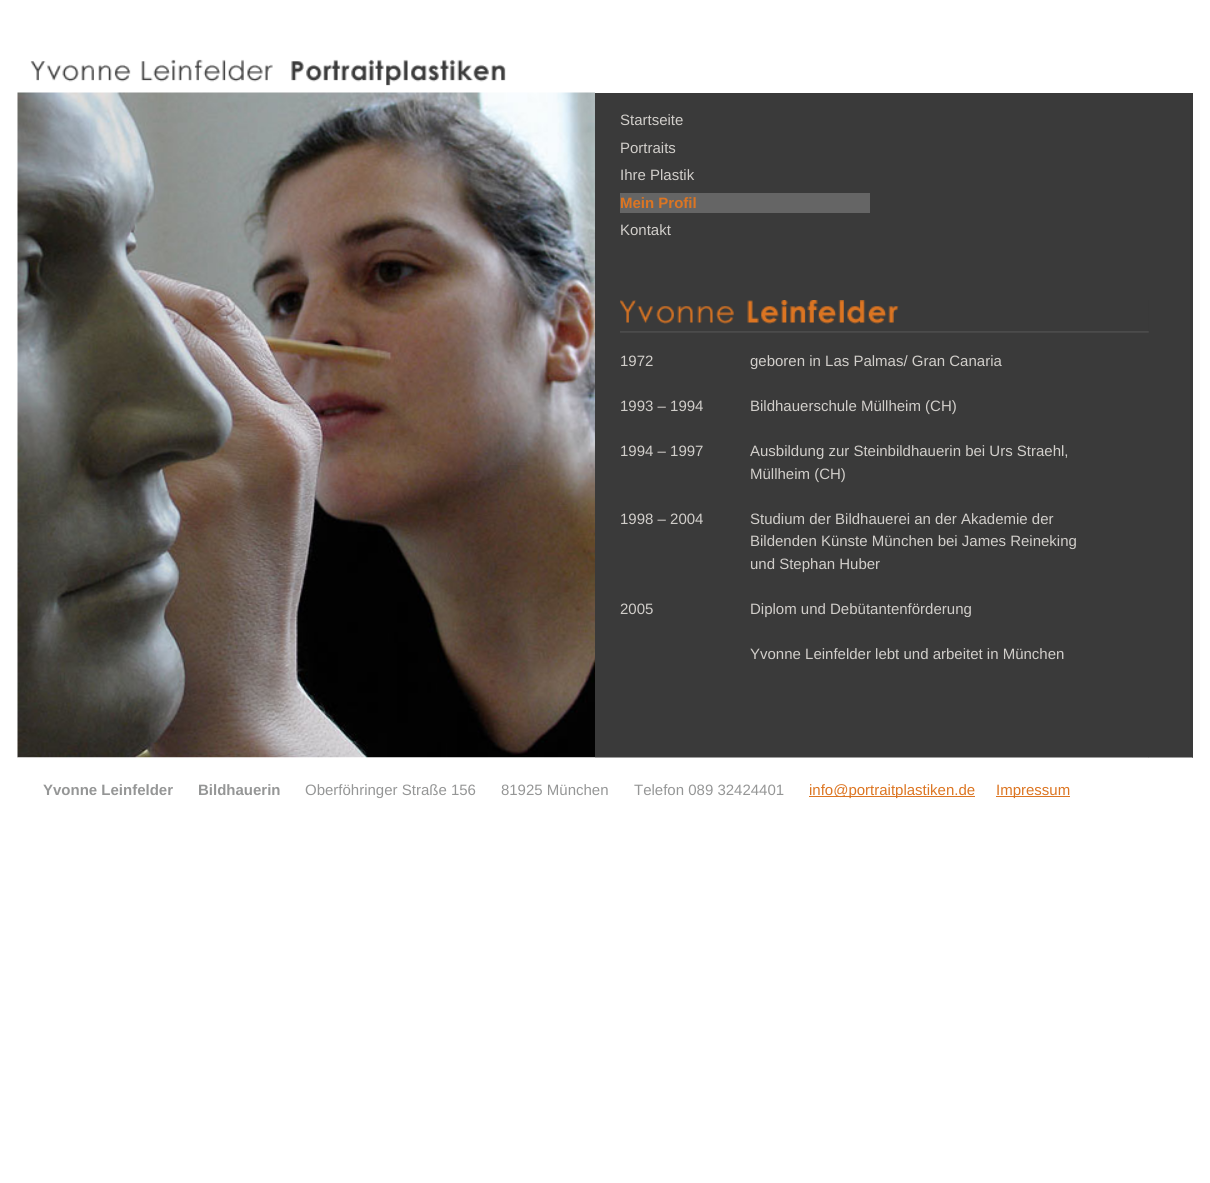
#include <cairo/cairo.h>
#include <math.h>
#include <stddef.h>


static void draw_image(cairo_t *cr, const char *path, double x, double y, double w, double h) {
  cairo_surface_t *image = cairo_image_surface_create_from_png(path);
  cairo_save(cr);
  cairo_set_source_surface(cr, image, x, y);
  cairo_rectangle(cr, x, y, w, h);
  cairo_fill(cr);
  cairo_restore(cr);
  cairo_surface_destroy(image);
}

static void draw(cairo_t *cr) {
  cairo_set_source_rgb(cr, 1, 1, 1);
  cairo_paint(cr);
  draw_image(cr, "images/1.png", 30, 59, 476, 27);
  draw_image(cr, "images/2.png", 17, 92, 578, 666);
  cairo_set_source_rgb(cr, 58 / 255.0, 58 / 255.0, 58 / 255.0);
  cairo_rectangle(cr, 595, 93, 25, 664);
  cairo_fill(cr);
  cairo_rectangle(cr, 620, 93, 573, 665);
  cairo_fill(cr);
  cairo_set_source_rgb(cr, 101 / 255.0, 101 / 255.0, 101 / 255.0);
  cairo_rectangle(cr, 620, 193, 250, 20);
  cairo_fill(cr);
  draw_image(cr, "images/3.png", 620, 300, 529, 33);
  draw_image(cr, "images/4.png", 17, 757, 578, 1);
  cairo_set_source_rgb(cr, 157 / 255.0, 157 / 255.0, 157 / 255.0);
  cairo_rectangle(cr, 595, 757, 25, 1);
  cairo_fill(cr);
  draw_image(cr, "images/5.png", 620, 757, 529, 1);
  draw_image(cr, "images/6.png", 1148, 757, 45, 1);
  cairo_set_source_rgb(cr, 220 / 255.0, 117 / 255.0, 34 / 255.0);
  cairo_rectangle(cr, 809, 796, 166, 1);
  cairo_fill(cr);
  cairo_rectangle(cr, 996, 796, 74, 1);
  cairo_fill(cr);
  cairo_select_font_face(cr, "Liberation Sans", CAIRO_FONT_SLANT_NORMAL, CAIRO_FONT_WEIGHT_NORMAL);
  cairo_set_font_size(cr, 15);
  cairo_set_source_rgb(cr, 209 / 255.0, 206 / 255.0, 202 / 255.0);
  cairo_move_to(cr, 620, 125);
  cairo_show_text(cr, "Startseite");
  cairo_move_to(cr, 620, 153);
  cairo_show_text(cr, "Portraits");
  cairo_move_to(cr, 620, 180);
  cairo_show_text(cr, "Ihre Plastik");
  cairo_select_font_face(cr, "Liberation Sans", CAIRO_FONT_SLANT_NORMAL, CAIRO_FONT_WEIGHT_BOLD);
  cairo_set_source_rgb(cr, 220 / 255.0, 117 / 255.0, 34 / 255.0);
  cairo_move_to(cr, 620, 208);
  cairo_show_text(cr, "Mein Profil");
  cairo_select_font_face(cr, "Liberation Sans", CAIRO_FONT_SLANT_NORMAL, CAIRO_FONT_WEIGHT_NORMAL);
  cairo_set_source_rgb(cr, 209 / 255.0, 206 / 255.0, 202 / 255.0);
  cairo_move_to(cr, 620, 235);
  cairo_show_text(cr, "Kontakt");
  cairo_move_to(cr, 620, 366);
  cairo_show_text(cr, "1972");
  cairo_move_to(cr, 620, 411);
  cairo_show_text(cr, "1993 – 1994");
  cairo_move_to(cr, 620, 456);
  cairo_show_text(cr, "1994 – 1997");
  cairo_move_to(cr, 620, 524);
  cairo_show_text(cr, "1998 – 2004");
  cairo_move_to(cr, 620, 614);
  cairo_show_text(cr, "2005");
  cairo_move_to(cr, 750, 366);
  cairo_show_text(cr, "geboren in Las Palmas/ Gran Canaria");
  cairo_move_to(cr, 750, 411);
  cairo_show_text(cr, "Bildhauerschule Müllheim (CH)");
  cairo_move_to(cr, 750, 456);
  cairo_show_text(cr, "Ausbildung zur Steinbildhauerin bei Urs Straehl,");
  cairo_move_to(cr, 750, 479);
  cairo_show_text(cr, "Müllheim (CH)");
  cairo_move_to(cr, 750, 524);
  cairo_show_text(cr, "Studium der Bildhauerei an der Akademie der");
  cairo_move_to(cr, 750, 546);
  cairo_show_text(cr, "Bildenden Künste München bei James Reineking");
  cairo_move_to(cr, 750, 569);
  cairo_show_text(cr, "und Stephan Huber");
  cairo_move_to(cr, 750, 614);
  cairo_show_text(cr, "Diplom und Debütantenförderung");
  cairo_move_to(cr, 750, 659);
  cairo_show_text(cr, "Yvonne Leinfelder lebt und arbeitet in München");
  cairo_select_font_face(cr, "Liberation Sans", CAIRO_FONT_SLANT_NORMAL, CAIRO_FONT_WEIGHT_BOLD);
  cairo_set_source_rgb(cr, 149 / 255.0, 150 / 255.0, 150 / 255.0);
  cairo_move_to(cr, 43, 795);
  cairo_show_text(cr, "Yvonne Leinfelder");
  cairo_move_to(cr, 198, 795);
  cairo_show_text(cr, "Bildhauerin");
  cairo_select_font_face(cr, "Liberation Sans", CAIRO_FONT_SLANT_NORMAL, CAIRO_FONT_WEIGHT_NORMAL);
  cairo_move_to(cr, 305, 795);
  cairo_show_text(cr, "Oberföhringer Straße 156      81925 München");
  cairo_move_to(cr, 634, 795);
  cairo_show_text(cr, "Telefon 089 32424401");
  cairo_set_source_rgb(cr, 220 / 255.0, 117 / 255.0, 34 / 255.0);
  cairo_move_to(cr, 809, 795);
  cairo_show_text(cr, "info@portraitplastiken.de");
  cairo_move_to(cr, 996, 795);
  cairo_show_text(cr, "Impressum");
}

int main(void) {
  cairo_surface_t *surface = cairo_image_surface_create(CAIRO_FORMAT_RGB24, 1210, 1183);
  cairo_t *cr = cairo_create(surface);
  cairo_font_options_t *options = cairo_font_options_create();
  cairo_font_options_set_hint_metrics(options, CAIRO_HINT_METRICS_OFF);
  cairo_font_options_set_hint_style(options, CAIRO_HINT_STYLE_NONE);
  cairo_set_font_options(cr, options);
  cairo_set_miter_limit(cr, 4);
  draw(cr);
  cairo_surface_write_to_png(surface, "out.png");
  cairo_font_options_destroy(options);
  cairo_destroy(cr);
  cairo_surface_destroy(surface);
  return 0;
}
